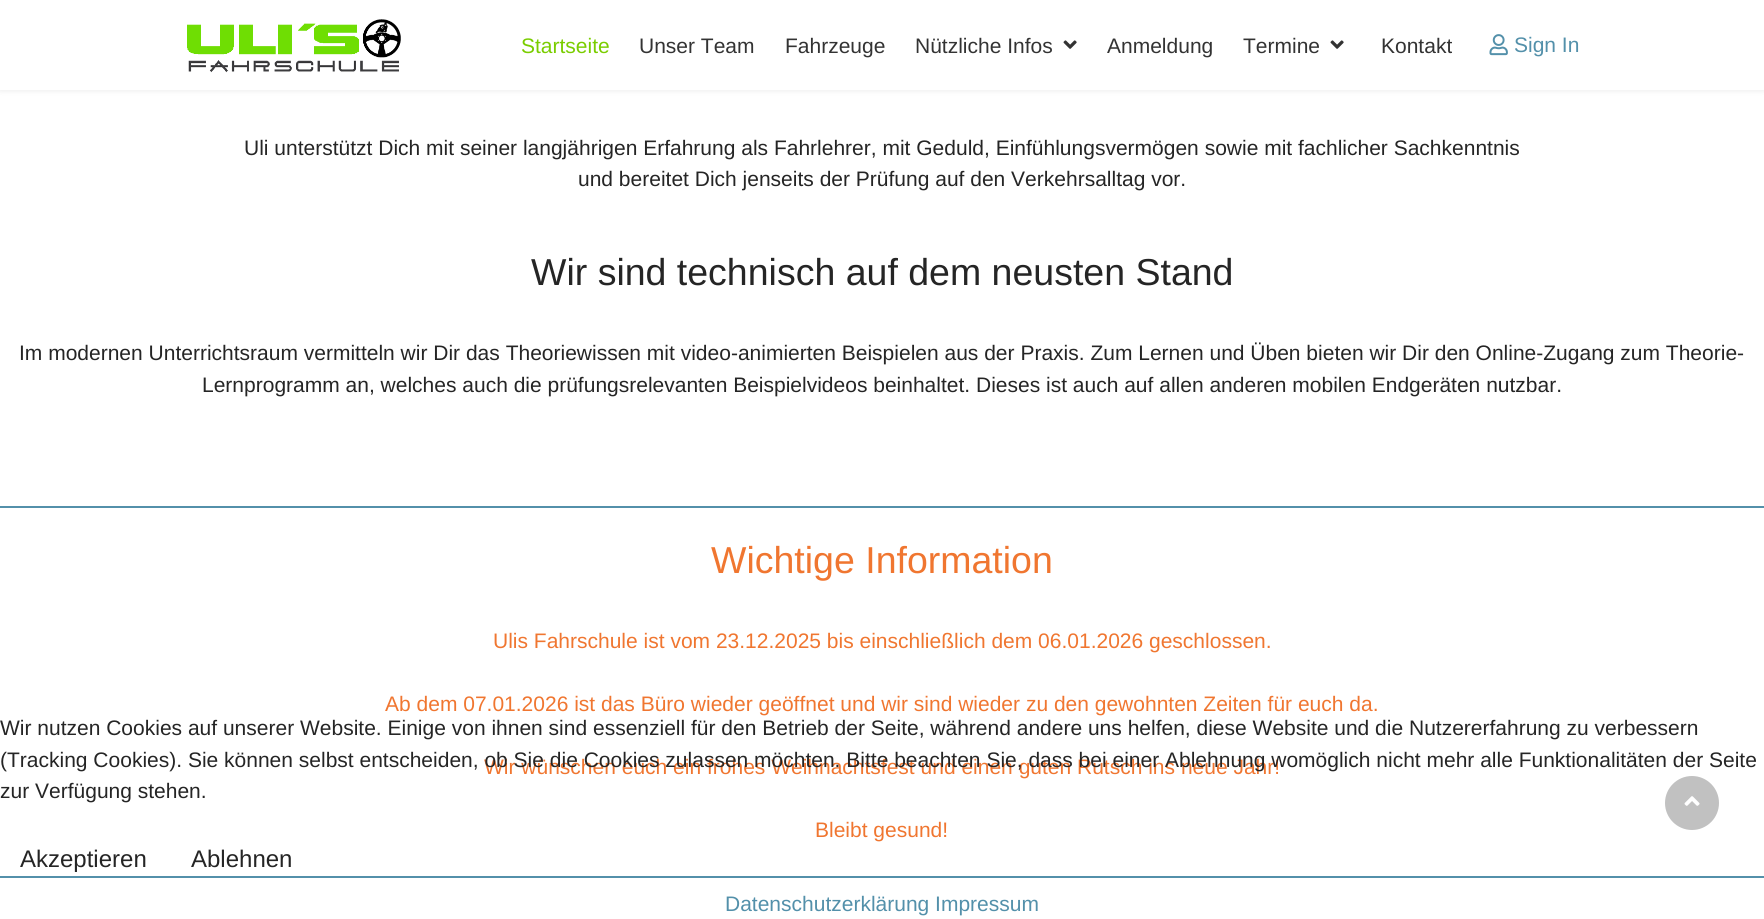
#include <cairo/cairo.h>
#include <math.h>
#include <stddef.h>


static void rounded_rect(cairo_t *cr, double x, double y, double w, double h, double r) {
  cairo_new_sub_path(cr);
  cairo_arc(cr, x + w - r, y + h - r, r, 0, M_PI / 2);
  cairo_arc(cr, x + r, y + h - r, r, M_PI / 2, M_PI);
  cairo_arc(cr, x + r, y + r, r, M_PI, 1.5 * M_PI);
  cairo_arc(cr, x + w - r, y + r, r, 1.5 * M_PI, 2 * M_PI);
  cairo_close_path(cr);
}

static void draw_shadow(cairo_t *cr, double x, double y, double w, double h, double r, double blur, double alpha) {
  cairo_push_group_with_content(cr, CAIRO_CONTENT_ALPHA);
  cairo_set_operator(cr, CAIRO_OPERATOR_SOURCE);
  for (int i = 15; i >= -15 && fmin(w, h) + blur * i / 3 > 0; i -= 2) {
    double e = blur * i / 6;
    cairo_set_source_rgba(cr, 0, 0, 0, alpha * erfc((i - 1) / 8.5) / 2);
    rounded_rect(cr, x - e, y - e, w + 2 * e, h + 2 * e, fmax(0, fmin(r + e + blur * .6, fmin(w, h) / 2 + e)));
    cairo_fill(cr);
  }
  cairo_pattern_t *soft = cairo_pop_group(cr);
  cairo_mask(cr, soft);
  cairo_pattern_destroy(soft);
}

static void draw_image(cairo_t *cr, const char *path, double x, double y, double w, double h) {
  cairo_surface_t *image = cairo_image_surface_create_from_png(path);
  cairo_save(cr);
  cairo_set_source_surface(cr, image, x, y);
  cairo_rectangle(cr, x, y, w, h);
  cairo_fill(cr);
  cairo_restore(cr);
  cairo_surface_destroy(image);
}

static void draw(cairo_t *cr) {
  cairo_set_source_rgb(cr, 1, 1, 1);
  cairo_paint(cr);
  cairo_set_source_rgb(cr, 0, 0, 0);
  draw_shadow(cr, 0, 0, 1764, 90, 0, 3, 0.1);
  cairo_set_source_rgb(cr, 1, 1, 1);
  cairo_rectangle(cr, 0, 0, 1764, 90);
  cairo_fill(cr);
  draw_image(cr, "images/1.png", 187, 19, 214, 54);
  draw_image(cr, "images/2.png", 1063, 40, 14, 9);
  draw_image(cr, "images/2.png", 1330, 40, 14, 9);
  draw_image(cr, "images/3.png", 1489, 34, 19, 22);
  cairo_set_source_rgb(cr, 83 / 255.0, 144 / 255.0, 170 / 255.0);
  cairo_rectangle(cr, 0, 506, 1764, 2);
  cairo_fill(cr);
  cairo_rectangle(cr, 0, 876, 1764, 2);
  cairo_fill(cr);
  cairo_set_source_rgb(cr, 193 / 255.0, 193 / 255.0, 193 / 255.0);
  cairo_arc(cr, 1692, 803, 27, 0, 2 * M_PI);
  cairo_fill(cr);
  draw_image(cr, "images/4.png", 1684, 796, 16, 10);
  cairo_select_font_face(cr, "Liberation Sans", CAIRO_FONT_SLANT_NORMAL, CAIRO_FONT_WEIGHT_NORMAL);
  cairo_set_font_size(cr, 21);
  cairo_set_source_rgb(cr, 122 / 255.0, 205 / 255.0, 0);
  cairo_move_to(cr, 521, 53);
  cairo_show_text(cr, "Startseite");
  cairo_set_source_rgb(cr, 51 / 255.0, 51 / 255.0, 51 / 255.0);
  cairo_move_to(cr, 639, 53);
  cairo_show_text(cr, "Unser Team");
  cairo_move_to(cr, 785, 53);
  cairo_show_text(cr, "Fahrzeuge");
  cairo_move_to(cr, 915, 53);
  cairo_show_text(cr, "Nützliche Infos");
  cairo_move_to(cr, 1107, 53);
  cairo_show_text(cr, "Anmeldung");
  cairo_move_to(cr, 1243, 53);
  cairo_show_text(cr, "Termine");
  cairo_move_to(cr, 1381, 53);
  cairo_show_text(cr, "Kontakt");
  cairo_set_source_rgb(cr, 83 / 255.0, 144 / 255.0, 170 / 255.0);
  cairo_move_to(cr, 1514, 52);
  cairo_show_text(cr, "Sign In");
  cairo_set_source_rgb(cr, 37 / 255.0, 37 / 255.0, 37 / 255.0);
  cairo_move_to(cr, 244, 155);
  cairo_show_text(cr, "Uli unterstützt Dich mit seiner langjährigen Erfahrung als Fahrlehrer, mit Geduld, Einfühlungsvermögen sowie mit fachlicher Sachkenntnis");
  cairo_move_to(cr, 578, 186);
  cairo_show_text(cr, "und bereitet Dich jenseits der Prüfung auf den Verkehrsalltag vor.");
  cairo_set_font_size(cr, 37.5);
  cairo_move_to(cr, 531, 285);
  cairo_show_text(cr, "Wir sind technisch auf dem neusten Stand");
  cairo_set_font_size(cr, 21);
  cairo_move_to(cr, 19, 360);
  cairo_show_text(cr, "Im modernen Unterrichtsraum vermitteln wir Dir das Theoriewissen mit video-animierten Beispielen aus der Praxis. Zum Lernen und Üben bieten wir Dir den Online-Zugang zum Theorie-");
  cairo_move_to(cr, 202, 392);
  cairo_show_text(cr, "Lernprogramm an, welches auch die prüfungsrelevanten Beispielvideos beinhaltet. Dieses ist auch auf allen anderen mobilen Endgeräten nutzbar.");
  cairo_set_font_size(cr, 37.5);
  cairo_set_source_rgb(cr, 240 / 255.0, 118 / 255.0, 48 / 255.0);
  cairo_move_to(cr, 711, 573);
  cairo_show_text(cr, "Wichtige Information");
  cairo_set_font_size(cr, 21);
  cairo_move_to(cr, 493, 648);
  cairo_show_text(cr, "Ulis Fahrschule ist vom 23.12.2025 bis einschließlich dem 06.01.2026 geschlossen.");
  cairo_move_to(cr, 385, 711);
  cairo_show_text(cr, "Ab dem 07.01.2026 ist das Büro wieder geöffnet und wir sind wieder zu den gewohnten Zeiten für euch da.");
  cairo_move_to(cr, 484, 774);
  cairo_show_text(cr, "Wir wünschen euch ein frohes Weihnachtsfest und einen guten Rutsch ins neue Jahr!");
  cairo_move_to(cr, 815, 837);
  cairo_show_text(cr, "Bleibt gesund!");
  cairo_set_source_rgb(cr, 37 / 255.0, 37 / 255.0, 37 / 255.0);
  cairo_move_to(cr, 0, 735);
  cairo_show_text(cr, "Wir nutzen Cookies auf unserer Website. Einige von ihnen sind essenziell für den Betrieb der Seite, während andere uns helfen, diese Website und die Nutzererfahrung zu verbessern");
  cairo_move_to(cr, 0, 767);
  cairo_show_text(cr, "(Tracking Cookies). Sie können selbst entscheiden, ob Sie die Cookies zulassen möchten. Bitte beachten Sie, dass bei einer Ablehnung womöglich nicht mehr alle Funktionalitäten der Seite");
  cairo_move_to(cr, 0, 798);
  cairo_show_text(cr, "zur Verfügung stehen.");
  cairo_set_font_size(cr, 24);
  cairo_move_to(cr, 20, 867);
  cairo_show_text(cr, "Akzeptieren");
  cairo_move_to(cr, 191, 867);
  cairo_show_text(cr, "Ablehnen");
  cairo_set_font_size(cr, 21);
  cairo_set_source_rgb(cr, 83 / 255.0, 144 / 255.0, 170 / 255.0);
  cairo_move_to(cr, 725, 911);
  cairo_show_text(cr, "Datenschutzerklärung Impressum");
}

int main(void) {
  cairo_surface_t *surface = cairo_image_surface_create(CAIRO_FORMAT_RGB24, 1764, 919);
  cairo_t *cr = cairo_create(surface);
  cairo_font_options_t *options = cairo_font_options_create();
  cairo_font_options_set_hint_metrics(options, CAIRO_HINT_METRICS_OFF);
  cairo_font_options_set_hint_style(options, CAIRO_HINT_STYLE_NONE);
  cairo_set_font_options(cr, options);
  cairo_set_miter_limit(cr, 4);
  draw(cr);
  cairo_surface_write_to_png(surface, "out.png");
  cairo_font_options_destroy(options);
  cairo_destroy(cr);
  cairo_surface_destroy(surface);
  return 0;
}
